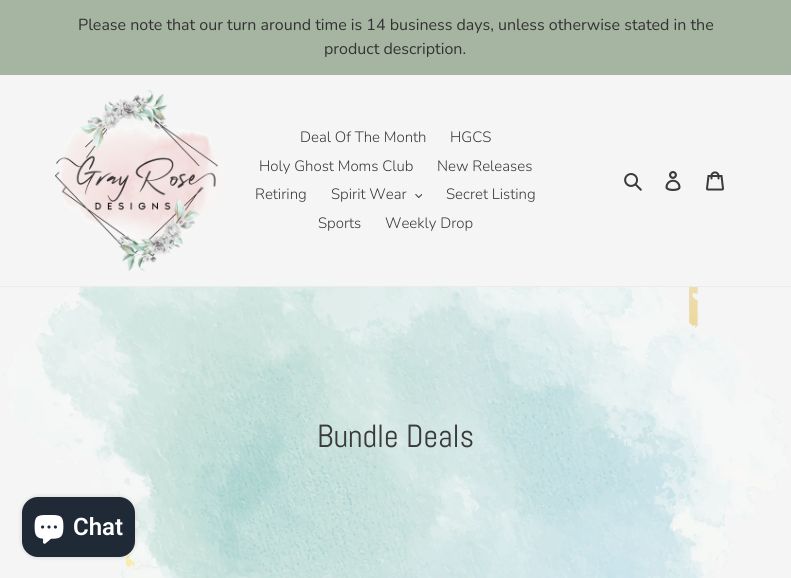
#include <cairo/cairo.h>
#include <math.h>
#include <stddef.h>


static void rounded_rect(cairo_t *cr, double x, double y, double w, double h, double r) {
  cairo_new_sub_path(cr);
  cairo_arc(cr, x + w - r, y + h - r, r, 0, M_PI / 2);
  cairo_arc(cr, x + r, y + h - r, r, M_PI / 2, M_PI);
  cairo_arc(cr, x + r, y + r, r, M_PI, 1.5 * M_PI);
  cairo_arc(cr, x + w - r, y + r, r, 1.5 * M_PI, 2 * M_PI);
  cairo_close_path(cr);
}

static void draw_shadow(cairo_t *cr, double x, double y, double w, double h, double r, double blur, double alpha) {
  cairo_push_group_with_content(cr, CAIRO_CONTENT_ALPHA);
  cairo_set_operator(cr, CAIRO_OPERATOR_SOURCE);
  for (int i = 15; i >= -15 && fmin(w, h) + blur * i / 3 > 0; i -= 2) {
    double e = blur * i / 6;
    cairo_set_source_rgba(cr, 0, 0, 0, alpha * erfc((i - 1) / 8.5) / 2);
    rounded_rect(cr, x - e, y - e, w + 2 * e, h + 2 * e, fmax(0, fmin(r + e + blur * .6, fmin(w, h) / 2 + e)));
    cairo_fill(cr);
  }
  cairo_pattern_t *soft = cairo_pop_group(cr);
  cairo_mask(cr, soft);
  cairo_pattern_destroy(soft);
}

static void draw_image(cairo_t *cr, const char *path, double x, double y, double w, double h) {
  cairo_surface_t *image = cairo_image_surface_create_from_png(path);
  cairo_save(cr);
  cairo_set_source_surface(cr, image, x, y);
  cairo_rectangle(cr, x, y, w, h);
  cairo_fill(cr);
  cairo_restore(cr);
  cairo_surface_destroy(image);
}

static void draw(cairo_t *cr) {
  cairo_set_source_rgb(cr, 244 / 255.0, 245 / 255.0, 244 / 255.0);
  cairo_paint(cr);
  cairo_set_source_rgb(cr, 166 / 255.0, 181 / 255.0, 162 / 255.0);
  cairo_rectangle(cr, 0, 0, 791, 75);
  cairo_fill(cr);
  cairo_set_source_rgb(cr, 235 / 255.0, 235 / 255.0, 235 / 255.0);
  cairo_rectangle(cr, 0, 286, 791, 1);
  cairo_fill(cr);
  draw_image(cr, "images/1.png", 55, 90, 169, 181);
  draw_image(cr, "images/2.png", 415, 194, 7, 4);
  draw_image(cr, "images/3.png", 624, 173, 18, 18);
  draw_image(cr, "images/4.png", 665, 171, 16, 20);
  draw_image(cr, "images/5.png", 706, 171, 18, 20);
  draw_image(cr, "images/6.png", 2, 287, 789, 291);
  cairo_set_source_rgb(cr, 0, 0, 0);
  draw_shadow(cr, 22, 497, 113, 60, 16, 2.5, 0.15);
  cairo_set_source_rgb(cr, 32 / 255.0, 42 / 255.0, 54 / 255.0);
  rounded_rect(cr, 22, 497, 113, 60, 16);
  cairo_fill(cr);
  draw_image(cr, "images/7.png", 34, 515, 30, 29);
  cairo_select_font_face(cr, "Nunito", CAIRO_FONT_SLANT_NORMAL, CAIRO_FONT_WEIGHT_NORMAL);
  cairo_set_font_size(cr, 16);
  cairo_set_source_rgb(cr, 51 / 255.0, 50 / 255.0, 50 / 255.0);
  cairo_move_to(cr, 78, 30);
  cairo_show_text(cr, "Please note that our turn around time is 14 business days, unless otherwise stated in the");
  cairo_move_to(cr, 324, 54);
  cairo_show_text(cr, "product description.");
  cairo_select_font_face(cr, "Nunito Light", CAIRO_FONT_SLANT_NORMAL, CAIRO_FONT_WEIGHT_NORMAL);
  cairo_set_font_size(cr, 15);
  cairo_set_source_rgb(cr, 58 / 255.0, 58 / 255.0, 58 / 255.0);
  cairo_move_to(cr, 300, 142);
  cairo_show_text(cr, "Deal Of The Month");
  cairo_move_to(cr, 450, 142);
  cairo_show_text(cr, "HGCS");
  cairo_move_to(cr, 259, 171);
  cairo_show_text(cr, "Holy Ghost Moms Club");
  cairo_move_to(cr, 437, 171);
  cairo_show_text(cr, "New Releases");
  cairo_move_to(cr, 255, 199);
  cairo_show_text(cr, "Retiring");
  cairo_move_to(cr, 331, 199);
  cairo_show_text(cr, "Spirit Wear");
  cairo_move_to(cr, 446, 199);
  cairo_show_text(cr, "Secret Listing");
  cairo_move_to(cr, 318, 228);
  cairo_show_text(cr, "Sports");
  cairo_move_to(cr, 385, 228);
  cairo_show_text(cr, "Weekly Drop");
  cairo_select_font_face(cr, "Abel", CAIRO_FONT_SLANT_NORMAL, CAIRO_FONT_WEIGHT_NORMAL);
  cairo_set_font_size(cr, 32);
  cairo_move_to(cr, 317, 447);
  cairo_show_text(cr, "Bundle Deals");
  cairo_select_font_face(cr, "Roboto SemiBold", CAIRO_FONT_SLANT_NORMAL, CAIRO_FONT_WEIGHT_NORMAL);
  cairo_set_font_size(cr, 24);
  cairo_set_source_rgb(cr, 1, 1, 1);
  cairo_move_to(cr, 73, 535);
  cairo_show_text(cr, "Chat");
}

int main(void) {
  cairo_surface_t *surface = cairo_image_surface_create(CAIRO_FORMAT_RGB24, 791, 578);
  cairo_t *cr = cairo_create(surface);
  cairo_font_options_t *options = cairo_font_options_create();
  cairo_font_options_set_hint_metrics(options, CAIRO_HINT_METRICS_OFF);
  cairo_font_options_set_hint_style(options, CAIRO_HINT_STYLE_NONE);
  cairo_set_font_options(cr, options);
  cairo_set_miter_limit(cr, 4);
  draw(cr);
  cairo_surface_write_to_png(surface, "out.png");
  cairo_font_options_destroy(options);
  cairo_destroy(cr);
  cairo_surface_destroy(surface);
  return 0;
}
